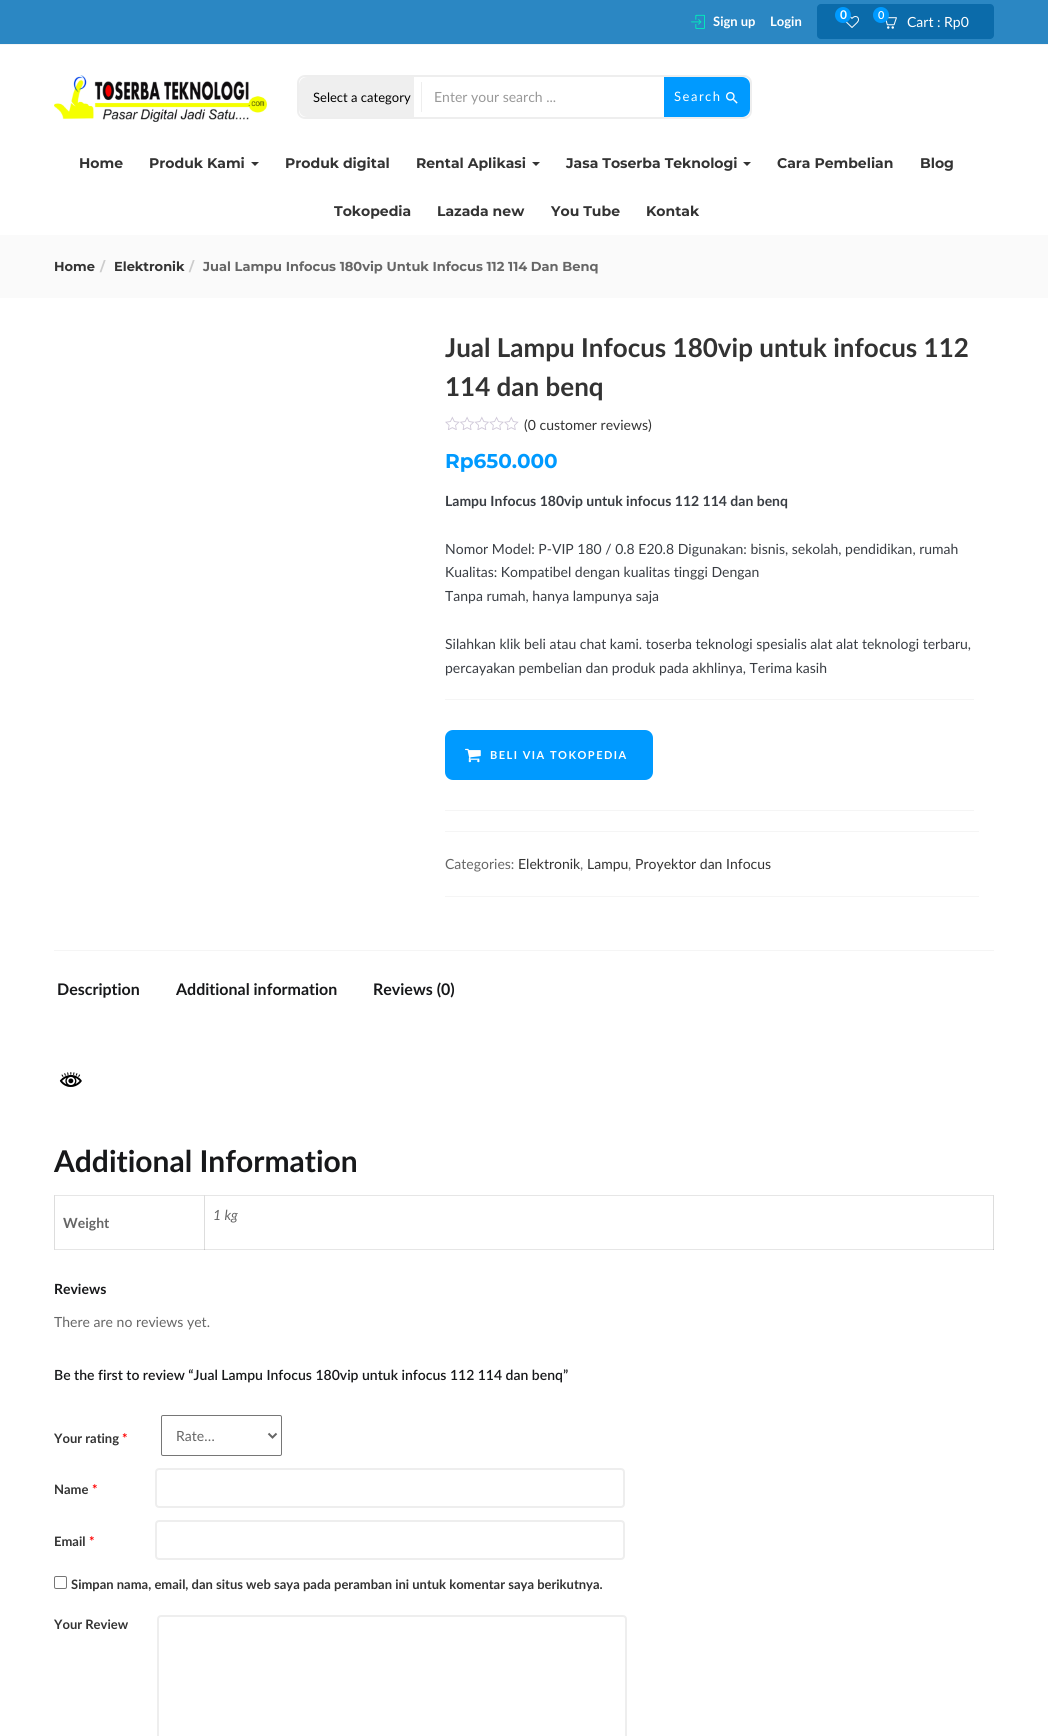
#include <cairo/cairo.h>
#include <math.h>
#include <stddef.h>


static void draw_spaced(cairo_t *cr, double x, double y, const char *s, double letter, double word) {
  cairo_move_to(cr, x, y);
  while (*s) {
    char ch[5] = {0};
    int n = 0;
    do ch[n++] = *s++; while ((*s & 0xC0) == 0x80);
    cairo_show_text(cr, ch);
    cairo_rel_move_to(cr, letter + word * (*ch == ' '), 0);
  }
}

static void rounded_rect(cairo_t *cr, double x, double y, double w, double h, double r) {
  cairo_new_sub_path(cr);
  cairo_arc(cr, x + w - r, y + h - r, r, 0, M_PI / 2);
  cairo_arc(cr, x + r, y + h - r, r, M_PI / 2, M_PI);
  cairo_arc(cr, x + r, y + r, r, M_PI, 1.5 * M_PI);
  cairo_arc(cr, x + w - r, y + r, r, 1.5 * M_PI, 2 * M_PI);
  cairo_close_path(cr);
}

static void draw_image(cairo_t *cr, const char *path, double x, double y, double w, double h) {
  cairo_surface_t *image = cairo_image_surface_create_from_png(path);
  cairo_save(cr);
  cairo_set_source_surface(cr, image, x, y);
  cairo_rectangle(cr, x, y, w, h);
  cairo_fill(cr);
  cairo_restore(cr);
  cairo_surface_destroy(image);
}

static void draw(cairo_t *cr) {
  cairo_set_source_rgb(cr, 1, 1, 1);
  cairo_paint(cr);
  cairo_set_source_rgb(cr, 230 / 255.0, 230 / 255.0, 230 / 255.0);
  cairo_rectangle(cr, 54, 1249, 940, 1);
  cairo_fill(cr);
  cairo_set_source_rgb(cr, 43 / 255.0, 135 / 255.0, 195 / 255.0);
  cairo_rectangle(cr, 0, 0, 1048, 44);
  cairo_fill(cr);
  cairo_set_source_rgb(cr, 245 / 255.0, 245 / 255.0, 245 / 255.0);
  cairo_rectangle(cr, 0, 44, 1048, 1);
  cairo_fill(cr);
  draw_image(cr, "images/1.png", 691, 14, 14, 15);
  cairo_set_source_rgb(cr, 11 / 255.0, 107 / 255.0, 170 / 255.0);
  rounded_rect(cr, 817, 4, 177, 35, 4);
  cairo_fill(cr);
  draw_image(cr, "images/2.png", 845, 16, 14, 12);
  cairo_set_source_rgb(cr, 0, 154 / 255.0, 1);
  cairo_arc(cr, 843, 15, 8, 0, 2 * M_PI);
  cairo_fill(cr);
  draw_image(cr, "images/3.png", 885, 17, 12, 12);
  cairo_arc(cr, 881, 15, 8, 0, 2 * M_PI);
  cairo_fill(cr);
  draw_image(cr, "images/4.png", 54, 75, 213, 47);
  rounded_rect(cr, 298, 76, 453, 42, 7);
  cairo_set_source_rgb(cr, 238 / 255.0, 238 / 255.0, 238 / 255.0);
  cairo_stroke(cr);
  cairo_set_source_rgb(cr, 239 / 255.0, 239 / 255.0, 239 / 255.0);
  rounded_rect(cr, 299, 77, 247, 40, 8);
  cairo_fill(cr);
  cairo_set_source_rgb(cr, 1, 1, 1);
  cairo_rectangle(cr, 414, 77, 132, 40);
  cairo_fill(cr);
  cairo_set_source_rgb(cr, 238 / 255.0, 238 / 255.0, 238 / 255.0);
  cairo_rectangle(cr, 421, 82, 1, 30);
  cairo_fill(cr);
  cairo_set_source_rgb(cr, 0, 154 / 255.0, 1);
  cairo_new_path(cr);
  cairo_move_to(cr, 664, 77);
  cairo_line_to(cr, 742, 77);
  cairo_curve_to(cr, 746.5, 77, 750, 80.5, 750, 85);
  cairo_line_to(cr, 750, 109);
  cairo_curve_to(cr, 750, 113.5, 746.5, 117, 742, 117);
  cairo_line_to(cr, 664, 117);
  cairo_close_path(cr);
  cairo_fill(cr);
  draw_image(cr, "images/5.png", 726, 92, 12, 12);
  cairo_set_source_rgb(cr, 51 / 255.0, 51 / 255.0, 51 / 255.0);
  cairo_new_path(cr);
  cairo_move_to(cr, 251, 162);
  cairo_line_to(cr, 259, 162);
  cairo_line_to(cr, 255, 166);
  cairo_close_path(cr);
  cairo_fill(cr);
  cairo_new_path(cr);
  cairo_move_to(cr, 532, 162);
  cairo_line_to(cr, 540, 162);
  cairo_line_to(cr, 536, 166);
  cairo_close_path(cr);
  cairo_fill(cr);
  cairo_new_path(cr);
  cairo_move_to(cr, 743, 162);
  cairo_line_to(cr, 751, 162);
  cairo_line_to(cr, 747, 166);
  cairo_close_path(cr);
  cairo_fill(cr);
  cairo_set_source_rgb(cr, 250 / 255.0, 250 / 255.0, 250 / 255.0);
  cairo_rectangle(cr, 0, 235, 1048, 63);
  cairo_fill(cr);
  draw_image(cr, "images/6.png", 445, 416, 74, 14);
  cairo_set_source_rgb(cr, 245 / 255.0, 245 / 255.0, 245 / 255.0);
  cairo_rectangle(cr, 445, 699, 529, 1);
  cairo_fill(cr);
  cairo_rectangle(cr, 445, 810, 529, 1);
  cairo_fill(cr);
  cairo_set_source_rgb(cr, 0, 154 / 255.0, 1);
  rounded_rect(cr, 445, 730, 208, 50, 8);
  cairo_fill(cr);
  draw_image(cr, "images/7.png", 465, 748, 16, 15);
  cairo_set_source_rgb(cr, 245 / 255.0, 245 / 255.0, 245 / 255.0);
  cairo_rectangle(cr, 445, 831, 534, 1);
  cairo_fill(cr);
  cairo_rectangle(cr, 445, 896, 534, 1);
  cairo_fill(cr);
  cairo_rectangle(cr, 54, 950, 940, 1);
  cairo_fill(cr);
  draw_image(cr, "images/8.png", 59, 1072, 23, 15);
  cairo_set_source_rgb(cr, 230 / 255.0, 230 / 255.0, 230 / 255.0);
  cairo_rectangle(cr, 54, 1195, 940, 1);
  cairo_fill(cr);
  cairo_set_source_rgb(cr, 221 / 255.0, 221 / 255.0, 221 / 255.0);
  cairo_rectangle(cr, 54, 1195, 1, 55);
  cairo_fill(cr);
  cairo_rectangle(cr, 993, 1195, 1, 55);
  cairo_fill(cr);
  cairo_set_source_rgb(cr, 199 / 255.0, 199 / 255.0, 199 / 255.0);
  cairo_rectangle(cr, 993, 1249, 1, 1);
  cairo_fill(cr);
  cairo_set_source_rgb(cr, 221 / 255.0, 221 / 255.0, 221 / 255.0);
  cairo_rectangle(cr, 204, 1195, 1, 55);
  cairo_fill(cr);
  cairo_set_source_rgb(cr, 199 / 255.0, 199 / 255.0, 199 / 255.0);
  cairo_rectangle(cr, 204, 1249, 1, 1);
  cairo_fill(cr);
  rounded_rect(cr, 161.5, 1415.5, 120, 40, 1.5);
  cairo_set_source_rgb(cr, 118 / 255.0, 118 / 255.0, 118 / 255.0);
  cairo_set_line_width(cr, 1);
  cairo_stroke(cr);
  cairo_new_path(cr);
  cairo_move_to(cr, 268.5, 1433.5);
  cairo_line_to(cr, 272.5, 1437.5);
  cairo_line_to(cr, 276.5, 1433.5);
  cairo_set_source_rgb(cr, 102 / 255.0, 102 / 255.0, 102 / 255.0);
  cairo_set_line_width(cr, 2);
  cairo_stroke(cr);
  rounded_rect(cr, 156, 1469, 468, 38, 3);
  cairo_set_source_rgb(cr, 238 / 255.0, 238 / 255.0, 238 / 255.0);
  cairo_stroke(cr);
  rounded_rect(cr, 156, 1521, 468, 38, 3);
  cairo_stroke(cr);
  rounded_rect(cr, 54.5, 1576.5, 12, 12, 1.5);
  cairo_set_source_rgb(cr, 118 / 255.0, 118 / 255.0, 118 / 255.0);
  cairo_set_line_width(cr, 1);
  cairo_stroke(cr);
  rounded_rect(cr, 158, 1616, 468, 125, 3);
  cairo_set_source_rgb(cr, 238 / 255.0, 238 / 255.0, 238 / 255.0);
  cairo_set_line_width(cr, 2);
  cairo_stroke(cr);
  cairo_select_font_face(cr, "Lato", CAIRO_FONT_SLANT_NORMAL, CAIRO_FONT_WEIGHT_BOLD);
  cairo_set_font_size(cr, 13);
  cairo_set_source_rgb(cr, 1, 1, 1);
  cairo_move_to(cr, 713, 26);
  cairo_show_text(cr, "Sign up");
  cairo_move_to(cr, 770, 26);
  cairo_show_text(cr, "Login");
  cairo_set_font_size(cr, 12);
  cairo_move_to(cr, 840, 19);
  cairo_show_text(cr, "0");
  cairo_select_font_face(cr, "Lato SemiBold", CAIRO_FONT_SLANT_NORMAL, CAIRO_FONT_WEIGHT_NORMAL);
  cairo_set_font_size(cr, 11);
  cairo_move_to(cr, 878, 19);
  cairo_show_text(cr, "0");
  cairo_select_font_face(cr, "Lato", CAIRO_FONT_SLANT_NORMAL, CAIRO_FONT_WEIGHT_NORMAL);
  cairo_set_font_size(cr, 14);
  cairo_move_to(cr, 907, 27);
  cairo_show_text(cr, "Cart : Rp0");
  cairo_set_font_size(cr, 13);
  cairo_set_source_rgb(cr, 0, 0, 0);
  cairo_move_to(cr, 313, 102);
  cairo_show_text(cr, "Select a category");
  cairo_set_font_size(cr, 14);
  cairo_set_source_rgb(cr, 153 / 255.0, 153 / 255.0, 153 / 255.0);
  cairo_move_to(cr, 434, 102);
  cairo_show_text(cr, "Enter your search ...");
  cairo_set_font_size(cr, 13);
  cairo_set_source_rgb(cr, 1, 1, 1);
  draw_spaced(cr, 674, 101, "Search", 1.5, 0);
  cairo_select_font_face(cr, "Montserrat", CAIRO_FONT_SLANT_NORMAL, CAIRO_FONT_WEIGHT_BOLD);
  cairo_set_font_size(cr, 14);
  cairo_set_source_rgb(cr, 51 / 255.0, 51 / 255.0, 51 / 255.0);
  cairo_move_to(cr, 79, 168);
  cairo_show_text(cr, "Home");
  cairo_move_to(cr, 149, 168);
  cairo_show_text(cr, "Produk Kami");
  cairo_move_to(cr, 285, 168);
  cairo_show_text(cr, "Produk digital");
  cairo_move_to(cr, 416, 168);
  cairo_show_text(cr, "Rental Aplikasi");
  cairo_move_to(cr, 566, 168);
  cairo_show_text(cr, "Jasa Toserba Teknologi");
  cairo_move_to(cr, 777, 168);
  cairo_show_text(cr, "Cara Pembelian");
  cairo_move_to(cr, 920, 168);
  cairo_show_text(cr, "Blog");
  cairo_move_to(cr, 334, 216);
  cairo_show_text(cr, "Tokopedia");
  cairo_move_to(cr, 437, 216);
  cairo_show_text(cr, "Lazada new");
  cairo_move_to(cr, 551, 216);
  cairo_show_text(cr, "You Tube");
  cairo_move_to(cr, 646, 216);
  cairo_show_text(cr, "Kontak");
  cairo_set_font_size(cr, 13);
  cairo_move_to(cr, 54, 271);
  cairo_show_text(cr, "Home");
  cairo_set_source_rgb(cr, 204 / 255.0, 204 / 255.0, 204 / 255.0);
  cairo_move_to(cr, 100, 271);
  cairo_show_text(cr, "/");
  cairo_set_source_rgb(cr, 51 / 255.0, 51 / 255.0, 51 / 255.0);
  cairo_move_to(cr, 114, 271);
  cairo_show_text(cr, "Elektronik");
  cairo_set_source_rgb(cr, 204 / 255.0, 204 / 255.0, 204 / 255.0);
  cairo_move_to(cr, 189, 271);
  cairo_show_text(cr, "/");
  cairo_set_source_rgb(cr, 102 / 255.0, 102 / 255.0, 102 / 255.0);
  cairo_move_to(cr, 203, 271);
  cairo_show_text(cr, "Jual Lampu Infocus 180vip Untuk Infocus 112 114 Dan Benq");
  cairo_select_font_face(cr, "Lato", CAIRO_FONT_SLANT_NORMAL, CAIRO_FONT_WEIGHT_BOLD);
  cairo_set_font_size(cr, 26);
  cairo_set_source_rgb(cr, 51 / 255.0, 51 / 255.0, 51 / 255.0);
  cairo_move_to(cr, 445, 357);
  cairo_show_text(cr, "Jual Lampu Infocus 180vip untuk infocus 112");
  cairo_move_to(cr, 445, 396);
  cairo_show_text(cr, "114 dan benq");
  cairo_select_font_face(cr, "Lato", CAIRO_FONT_SLANT_NORMAL, CAIRO_FONT_WEIGHT_NORMAL);
  cairo_set_font_size(cr, 14);
  cairo_move_to(cr, 524, 430);
  cairo_show_text(cr, "(0 customer reviews)");
  cairo_select_font_face(cr, "Montserrat", CAIRO_FONT_SLANT_NORMAL, CAIRO_FONT_WEIGHT_BOLD);
  cairo_set_font_size(cr, 20);
  cairo_set_source_rgb(cr, 0, 154 / 255.0, 1);
  cairo_move_to(cr, 445, 468);
  cairo_show_text(cr, "Rp650.000");
  cairo_select_font_face(cr, "Lato", CAIRO_FONT_SLANT_NORMAL, CAIRO_FONT_WEIGHT_BOLD);
  cairo_set_font_size(cr, 14);
  cairo_set_source_rgb(cr, 57 / 255.0, 61 / 255.0, 67 / 255.0);
  cairo_move_to(cr, 445, 506);
  cairo_show_text(cr, "Lampu Infocus 180vip untuk infocus 112 114 dan benq");
  cairo_select_font_face(cr, "Lato", CAIRO_FONT_SLANT_NORMAL, CAIRO_FONT_WEIGHT_NORMAL);
  cairo_move_to(cr, 445, 554);
  cairo_show_text(cr, "Nomor Model: P-VIP 180 / 0.8 E20.8 Digunakan: bisnis, sekolah, pendidikan, rumah");
  cairo_move_to(cr, 445, 577);
  cairo_show_text(cr, "Kualitas: Kompatibel dengan kualitas tinggi Dengan");
  cairo_move_to(cr, 445, 601);
  cairo_show_text(cr, "Tanpa rumah, hanya lampunya saja");
  cairo_move_to(cr, 445, 649);
  cairo_show_text(cr, "Silahkan klik beli atau chat kami. toserba teknologi spesialis alat alat teknologi terbaru,");
  cairo_move_to(cr, 445, 673);
  cairo_show_text(cr, "percayakan pembelian dan produk pada akhlinya, Terima kasih");
  cairo_select_font_face(cr, "Lato", CAIRO_FONT_SLANT_NORMAL, CAIRO_FONT_WEIGHT_BOLD);
  cairo_set_font_size(cr, 11);
  cairo_set_source_rgb(cr, 1, 1, 1);
  draw_spaced(cr, 490, 759, "BELI VIA TOKOPEDIA", 1.5, 0);
  cairo_select_font_face(cr, "Lato", CAIRO_FONT_SLANT_NORMAL, CAIRO_FONT_WEIGHT_NORMAL);
  cairo_set_font_size(cr, 14);
  cairo_set_source_rgb(cr, 102 / 255.0, 102 / 255.0, 102 / 255.0);
  cairo_move_to(cr, 445, 869);
  cairo_show_text(cr, "Categories:");
  cairo_set_source_rgb(cr, 51 / 255.0, 51 / 255.0, 51 / 255.0);
  cairo_move_to(cr, 518, 869);
  cairo_show_text(cr, "Elektronik");
  cairo_set_source_rgb(cr, 102 / 255.0, 102 / 255.0, 102 / 255.0);
  cairo_move_to(cr, 580, 869);
  cairo_show_text(cr, ",");
  cairo_set_source_rgb(cr, 51 / 255.0, 51 / 255.0, 51 / 255.0);
  cairo_move_to(cr, 587, 869);
  cairo_show_text(cr, "Lampu");
  cairo_set_source_rgb(cr, 102 / 255.0, 102 / 255.0, 102 / 255.0);
  cairo_move_to(cr, 628, 869);
  cairo_show_text(cr, ",");
  cairo_set_source_rgb(cr, 51 / 255.0, 51 / 255.0, 51 / 255.0);
  cairo_move_to(cr, 635, 869);
  cairo_show_text(cr, "Proyektor dan Infocus");
  cairo_select_font_face(cr, "Lato", CAIRO_FONT_SLANT_NORMAL, CAIRO_FONT_WEIGHT_BOLD);
  cairo_set_font_size(cr, 16);
  cairo_set_source_rgb(cr, 23 / 255.0, 24 / 255.0, 26 / 255.0);
  cairo_move_to(cr, 57, 995);
  cairo_show_text(cr, "Description");
  cairo_move_to(cr, 176, 995);
  cairo_show_text(cr, "Additional information");
  cairo_move_to(cr, 373, 995);
  cairo_show_text(cr, "Reviews (0)");
  cairo_set_font_size(cr, 30);
  cairo_move_to(cr, 54, 1172);
  cairo_show_text(cr, "Additional Information");
  cairo_set_font_size(cr, 14);
  cairo_set_source_rgb(cr, 102 / 255.0, 102 / 255.0, 102 / 255.0);
  cairo_move_to(cr, 63, 1228);
  cairo_show_text(cr, "Weight");
  cairo_select_font_face(cr, "Lato", CAIRO_FONT_SLANT_ITALIC, CAIRO_FONT_WEIGHT_NORMAL);
  cairo_move_to(cr, 213, 1220);
  cairo_show_text(cr, "1 kg");
  cairo_select_font_face(cr, "Lato", CAIRO_FONT_SLANT_NORMAL, CAIRO_FONT_WEIGHT_BOLD);
  cairo_set_source_rgb(cr, 23 / 255.0, 24 / 255.0, 26 / 255.0);
  cairo_move_to(cr, 54, 1294);
  cairo_show_text(cr, "Reviews");
  cairo_select_font_face(cr, "Lato", CAIRO_FONT_SLANT_NORMAL, CAIRO_FONT_WEIGHT_NORMAL);
  cairo_set_source_rgb(cr, 102 / 255.0, 102 / 255.0, 102 / 255.0);
  cairo_move_to(cr, 54, 1327);
  cairo_show_text(cr, "There are no reviews yet.");
  cairo_select_font_face(cr, "Lato SemiBold", CAIRO_FONT_SLANT_NORMAL, CAIRO_FONT_WEIGHT_NORMAL);
  cairo_set_source_rgb(cr, 23 / 255.0, 24 / 255.0, 26 / 255.0);
  cairo_move_to(cr, 54, 1380);
  cairo_show_text(cr, "Be the first to review “Jual Lampu Infocus 180vip untuk infocus 112 114 dan benq”");
  cairo_select_font_face(cr, "Lato", CAIRO_FONT_SLANT_NORMAL, CAIRO_FONT_WEIGHT_BOLD);
  cairo_set_font_size(cr, 13);
  cairo_set_source_rgb(cr, 51 / 255.0, 51 / 255.0, 51 / 255.0);
  cairo_move_to(cr, 54, 1443);
  cairo_show_text(cr, "Your rating");
  cairo_set_source_rgb(cr, 1, 0, 0);
  cairo_move_to(cr, 122, 1443);
  cairo_show_text(cr, "*");
  cairo_select_font_face(cr, "Lato", CAIRO_FONT_SLANT_NORMAL, CAIRO_FONT_WEIGHT_NORMAL);
  cairo_set_font_size(cr, 14);
  cairo_set_source_rgb(cr, 102 / 255.0, 102 / 255.0, 102 / 255.0);
  cairo_move_to(cr, 176, 1441);
  cairo_show_text(cr, "Rate…");
  cairo_select_font_face(cr, "Lato", CAIRO_FONT_SLANT_NORMAL, CAIRO_FONT_WEIGHT_BOLD);
  cairo_set_font_size(cr, 13);
  cairo_set_source_rgb(cr, 51 / 255.0, 51 / 255.0, 51 / 255.0);
  cairo_move_to(cr, 54, 1494);
  cairo_show_text(cr, "Name");
  cairo_set_source_rgb(cr, 1, 0, 0);
  cairo_move_to(cr, 92, 1494);
  cairo_show_text(cr, "*");
  cairo_set_source_rgb(cr, 51 / 255.0, 51 / 255.0, 51 / 255.0);
  cairo_move_to(cr, 54, 1546);
  cairo_show_text(cr, "Email");
  cairo_set_source_rgb(cr, 1, 0, 0);
  cairo_move_to(cr, 89, 1546);
  cairo_show_text(cr, "*");
  cairo_set_source_rgb(cr, 51 / 255.0, 51 / 255.0, 51 / 255.0);
  cairo_move_to(cr, 71, 1589);
  cairo_show_text(cr, "Simpan nama, email, dan situs web saya pada peramban ini untuk komentar saya berikutnya.");
  cairo_move_to(cr, 54, 1629);
  cairo_show_text(cr, "Your Review");
}

int main(void) {
  cairo_surface_t *surface = cairo_image_surface_create(CAIRO_FORMAT_RGB24, 1048, 1736);
  cairo_t *cr = cairo_create(surface);
  cairo_font_options_t *options = cairo_font_options_create();
  cairo_font_options_set_hint_metrics(options, CAIRO_HINT_METRICS_OFF);
  cairo_font_options_set_hint_style(options, CAIRO_HINT_STYLE_NONE);
  cairo_set_font_options(cr, options);
  cairo_set_miter_limit(cr, 4);
  draw(cr);
  cairo_surface_write_to_png(surface, "out.png");
  cairo_font_options_destroy(options);
  cairo_destroy(cr);
  cairo_surface_destroy(surface);
  return 0;
}
